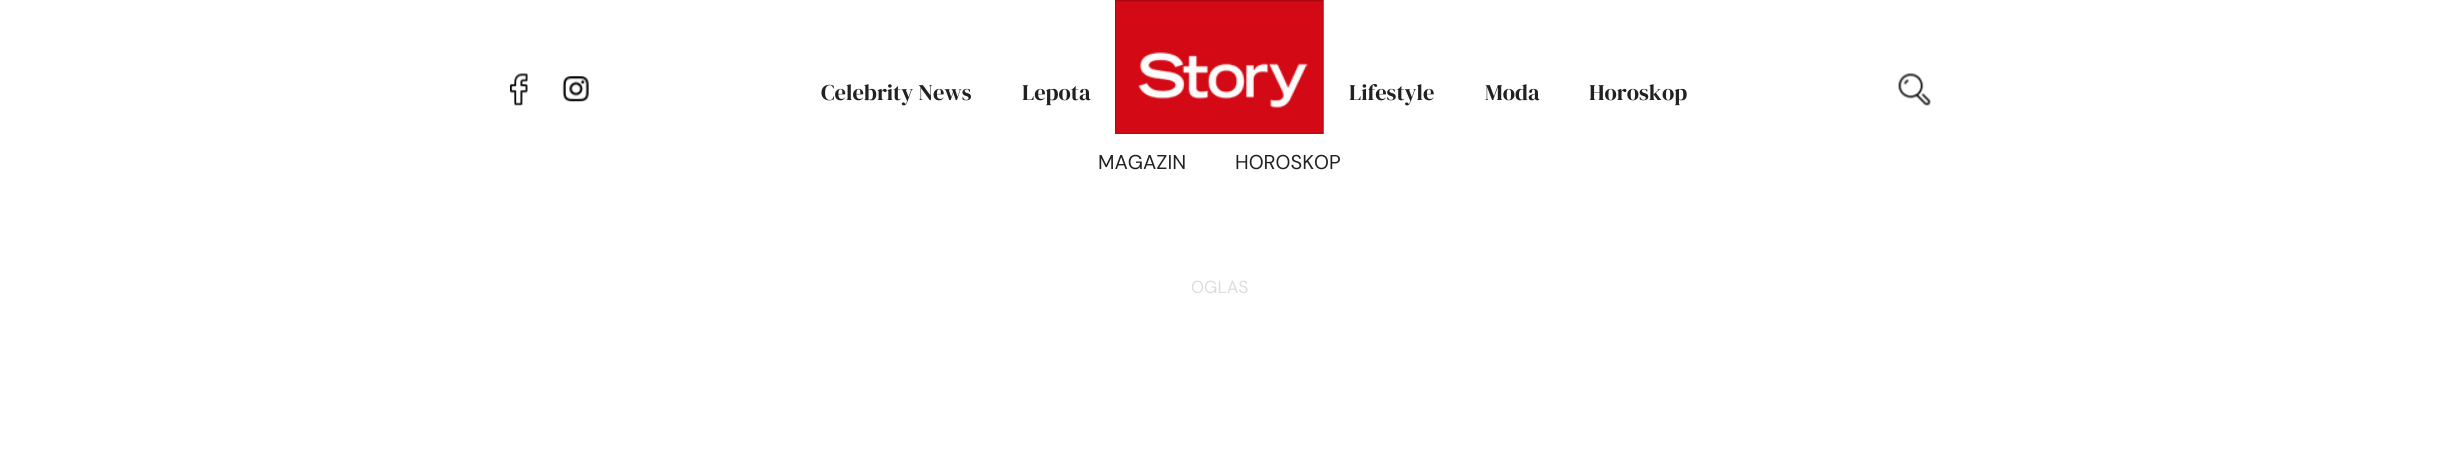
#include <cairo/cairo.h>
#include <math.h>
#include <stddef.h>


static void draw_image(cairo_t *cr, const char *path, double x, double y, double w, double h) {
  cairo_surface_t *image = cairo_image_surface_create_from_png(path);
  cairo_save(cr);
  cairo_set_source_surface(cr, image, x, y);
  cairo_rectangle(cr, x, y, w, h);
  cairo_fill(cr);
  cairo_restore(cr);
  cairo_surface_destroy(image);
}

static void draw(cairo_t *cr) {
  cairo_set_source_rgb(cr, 1, 1, 1);
  cairo_paint(cr);
  draw_image(cr, "images/1.png", 510, 73, 18, 33);
  draw_image(cr, "images/2.png", 562, 76, 27, 26);
  draw_image(cr, "images/3.png", 1115, 0, 209, 134);
  draw_image(cr, "images/4.png", 1898, 73, 33, 33);
  cairo_select_font_face(cr, "DM Serif Display", CAIRO_FONT_SLANT_NORMAL, CAIRO_FONT_WEIGHT_NORMAL);
  cairo_set_font_size(cr, 22.5);
  cairo_set_source_rgb(cr, 33 / 255.0, 33 / 255.0, 33 / 255.0);
  cairo_move_to(cr, 821, 100);
  cairo_show_text(cr, "Celebrity News");
  cairo_move_to(cr, 1022, 100);
  cairo_show_text(cr, "Lepota");
  cairo_move_to(cr, 1349, 100);
  cairo_show_text(cr, "Lifestyle");
  cairo_move_to(cr, 1485, 100);
  cairo_show_text(cr, "Moda");
  cairo_move_to(cr, 1589, 100);
  cairo_show_text(cr, "Horoskop");
  cairo_select_font_face(cr, "DM Sans", CAIRO_FONT_SLANT_NORMAL, CAIRO_FONT_WEIGHT_NORMAL);
  cairo_set_font_size(cr, 20);
  cairo_move_to(cr, 1098, 169);
  cairo_show_text(cr, "MAGAZIN");
  cairo_move_to(cr, 1235, 169);
  cairo_show_text(cr, "HOROSKOP");
  cairo_set_font_size(cr, 17.5);
  cairo_set_source_rgb(cr, 221 / 255.0, 221 / 255.0, 221 / 255.0);
  cairo_move_to(cr, 1191, 293);
  cairo_show_text(cr, "OGLAS");
}

int main(void) {
  cairo_surface_t *surface = cairo_image_surface_create(CAIRO_FORMAT_RGB24, 2440, 451);
  cairo_t *cr = cairo_create(surface);
  cairo_font_options_t *options = cairo_font_options_create();
  cairo_font_options_set_hint_metrics(options, CAIRO_HINT_METRICS_OFF);
  cairo_font_options_set_hint_style(options, CAIRO_HINT_STYLE_NONE);
  cairo_set_font_options(cr, options);
  cairo_set_miter_limit(cr, 4);
  draw(cr);
  cairo_surface_write_to_png(surface, "out.png");
  cairo_font_options_destroy(options);
  cairo_destroy(cr);
  cairo_surface_destroy(surface);
  return 0;
}
